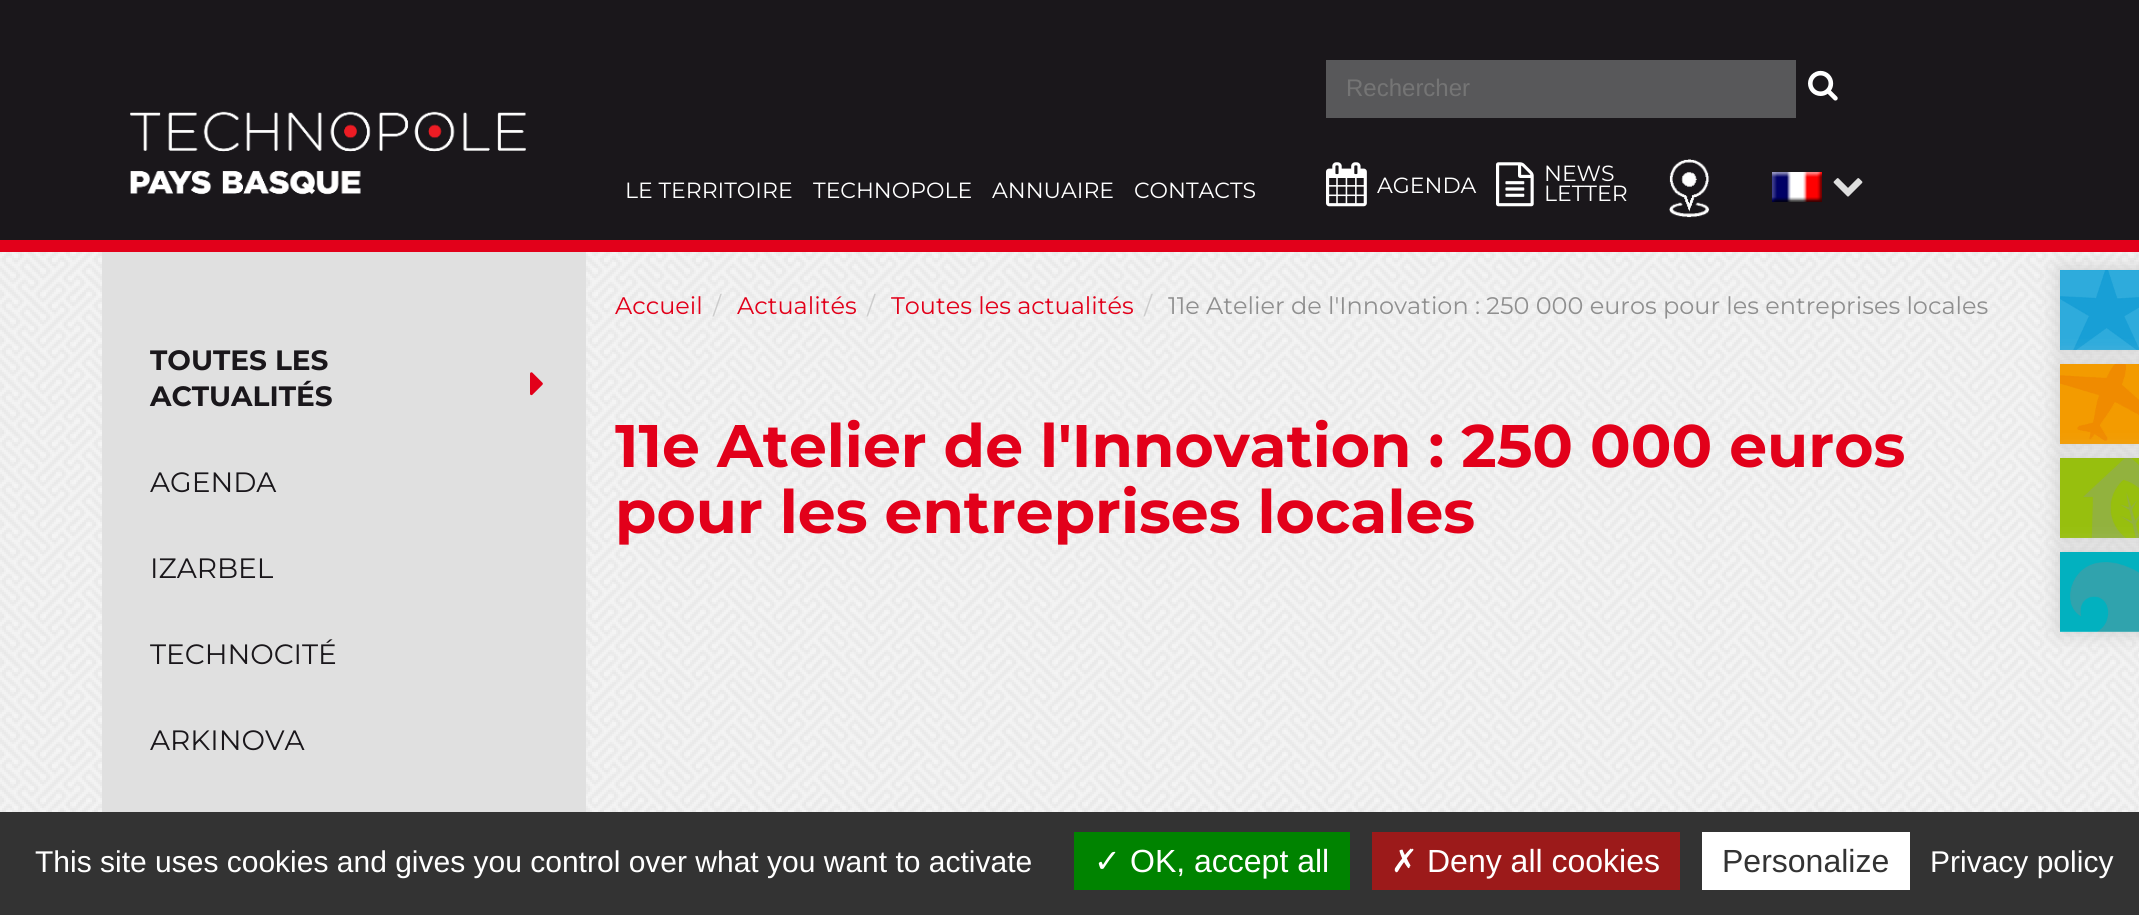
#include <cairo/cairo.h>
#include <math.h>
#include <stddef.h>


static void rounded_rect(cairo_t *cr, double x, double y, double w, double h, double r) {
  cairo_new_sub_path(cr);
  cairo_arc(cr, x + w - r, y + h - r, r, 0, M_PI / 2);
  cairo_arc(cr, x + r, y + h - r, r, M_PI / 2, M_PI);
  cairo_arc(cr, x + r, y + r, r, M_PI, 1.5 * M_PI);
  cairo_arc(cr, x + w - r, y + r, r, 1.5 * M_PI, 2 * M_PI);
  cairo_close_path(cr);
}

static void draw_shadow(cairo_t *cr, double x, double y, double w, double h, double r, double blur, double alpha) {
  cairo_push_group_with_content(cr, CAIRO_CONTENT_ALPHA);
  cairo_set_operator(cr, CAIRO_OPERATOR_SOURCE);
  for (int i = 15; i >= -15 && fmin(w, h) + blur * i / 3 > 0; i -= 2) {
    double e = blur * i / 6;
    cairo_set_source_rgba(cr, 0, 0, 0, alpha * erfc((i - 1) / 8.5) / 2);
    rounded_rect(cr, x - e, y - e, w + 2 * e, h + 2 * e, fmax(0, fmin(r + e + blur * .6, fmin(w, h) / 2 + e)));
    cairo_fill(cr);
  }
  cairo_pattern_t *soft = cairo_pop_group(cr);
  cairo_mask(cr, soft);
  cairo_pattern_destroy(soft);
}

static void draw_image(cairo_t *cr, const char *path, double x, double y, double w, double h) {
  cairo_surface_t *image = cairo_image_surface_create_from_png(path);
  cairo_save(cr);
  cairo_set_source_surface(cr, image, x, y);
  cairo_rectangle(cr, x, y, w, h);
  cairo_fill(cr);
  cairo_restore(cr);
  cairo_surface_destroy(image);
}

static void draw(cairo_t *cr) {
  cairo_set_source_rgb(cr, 1, 1, 1);
  cairo_paint(cr);
  draw_image(cr, "images/8.png", 0, 252, 2139, 560);
  cairo_set_source_rgb(cr, 204 / 255.0, 204 / 255.0, 204 / 255.0);
  draw_shadow(cr, 2060, 270, 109, 80, 0, 10, 1);
  cairo_set_source_rgb(cr, 26 / 255.0, 23 / 255.0, 27 / 255.0);
  cairo_rectangle(cr, 0, 0, 2139, 240);
  cairo_fill(cr);
  cairo_set_source_rgb(cr, 226 / 255.0, 0, 26 / 255.0);
  cairo_rectangle(cr, 0, 240, 2139, 12);
  cairo_fill(cr);
  draw_image(cr, "images/1.png", 130, 111, 396, 84);
  cairo_set_source_rgb(cr, 88 / 255.0, 88 / 255.0, 90 / 255.0);
  cairo_rectangle(cr, 1326, 60, 470, 58);
  cairo_fill(cr);
  draw_image(cr, "images/2.png", 1808, 70, 30, 31);
  draw_image(cr, "images/3.png", 1326, 162, 41, 45);
  draw_image(cr, "images/4.png", 1496, 162, 38, 45);
  draw_image(cr, "images/5.png", 1669, 159, 41, 59);
  draw_image(cr, "images/6.png", 1772, 172, 50, 30);
  draw_image(cr, "images/7.png", 1833, 178, 30, 19);
  cairo_set_source_rgb(cr, 224 / 255.0, 224 / 255.0, 224 / 255.0);
  cairo_rectangle(cr, 102, 252, 484, 560);
  cairo_fill(cr);
  draw_image(cr, "images/9.png", 530, 372, 13, 24);
  draw_image(cr, "images/10.png", 2060, 270, 79, 80);
  cairo_set_source_rgb(cr, 204 / 255.0, 204 / 255.0, 204 / 255.0);
  draw_shadow(cr, 2060, 364, 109, 80, 0, 10, 1);
  draw_image(cr, "images/11.png", 2060, 364, 79, 80);
  draw_shadow(cr, 2060, 458, 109, 80, 0, 10, 1);
  draw_image(cr, "images/12.png", 2060, 458, 79, 80);
  draw_shadow(cr, 2060, 552, 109, 80, 0, 10, 1);
  draw_image(cr, "images/13.png", 2060, 552, 79, 80);
  cairo_set_source_rgb(cr, 51 / 255.0, 51 / 255.0, 51 / 255.0);
  cairo_rectangle(cr, 0, 812, 2139, 103);
  cairo_fill(cr);
  cairo_set_source_rgb(cr, 0, 131 / 255.0, 0);
  cairo_rectangle(cr, 1074, 832, 276, 58);
  cairo_fill(cr);
  cairo_set_source_rgb(cr, 156 / 255.0, 26 / 255.0, 26 / 255.0);
  cairo_rectangle(cr, 1372, 832, 308, 58);
  cairo_fill(cr);
  cairo_set_source_rgb(cr, 1, 1, 1);
  cairo_rectangle(cr, 1702, 832, 208, 58);
  cairo_fill(cr);
  cairo_select_font_face(cr, "Montserrat Thin", CAIRO_FONT_SLANT_NORMAL, CAIRO_FONT_WEIGHT_NORMAL);
  cairo_set_font_size(cr, 22);
  cairo_move_to(cr, 625, 198);
  cairo_show_text(cr, "LE TERRITOIRE");
  cairo_move_to(cr, 813, 198);
  cairo_show_text(cr, "TECHNOPOLE");
  cairo_move_to(cr, 992, 198);
  cairo_show_text(cr, "ANNUAIRE");
  cairo_move_to(cr, 1134, 198);
  cairo_show_text(cr, "CONTACTS");
  cairo_select_font_face(cr, "Liberation Sans", CAIRO_FONT_SLANT_NORMAL, CAIRO_FONT_WEIGHT_NORMAL);
  cairo_set_font_size(cr, 24);
  cairo_set_source_rgb(cr, 117 / 255.0, 117 / 255.0, 117 / 255.0);
  cairo_move_to(cr, 1346, 96);
  cairo_show_text(cr, "Rechercher");
  cairo_select_font_face(cr, "Montserrat Thin", CAIRO_FONT_SLANT_NORMAL, CAIRO_FONT_WEIGHT_NORMAL);
  cairo_set_font_size(cr, 22);
  cairo_set_source_rgb(cr, 1, 1, 1);
  cairo_move_to(cr, 1377, 193);
  cairo_show_text(cr, "AGENDA");
  cairo_move_to(cr, 1544, 181);
  cairo_show_text(cr, "NEWS");
  cairo_move_to(cr, 1544, 201);
  cairo_show_text(cr, "LETTER");
  cairo_select_font_face(cr, "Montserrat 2 Thin", CAIRO_FONT_SLANT_NORMAL, CAIRO_FONT_WEIGHT_NORMAL);
  cairo_set_font_size(cr, 28);
  cairo_set_source_rgb(cr, 26 / 255.0, 23 / 255.0, 27 / 255.0);
  cairo_move_to(cr, 150, 370);
  cairo_show_text(cr, "TOUTES LES");
  cairo_move_to(cr, 150, 406);
  cairo_show_text(cr, "ACTUALITÉS");
  cairo_select_font_face(cr, "Montserrat Thin", CAIRO_FONT_SLANT_NORMAL, CAIRO_FONT_WEIGHT_NORMAL);
  cairo_move_to(cr, 150, 492);
  cairo_show_text(cr, "AGENDA");
  cairo_move_to(cr, 150, 578);
  cairo_show_text(cr, "IZARBEL");
  cairo_move_to(cr, 150, 664);
  cairo_show_text(cr, "TECHNOCITÉ");
  cairo_move_to(cr, 150, 750);
  cairo_show_text(cr, "ARKINOVA");
  cairo_set_font_size(cr, 24);
  cairo_set_source_rgb(cr, 226 / 255.0, 0, 26 / 255.0);
  cairo_move_to(cr, 615, 314);
  cairo_show_text(cr, "Accueil");
  cairo_set_source_rgb(cr, 204 / 255.0, 204 / 255.0, 204 / 255.0);
  cairo_move_to(cr, 713, 314);
  cairo_show_text(cr, "/");
  cairo_set_source_rgb(cr, 226 / 255.0, 0, 26 / 255.0);
  cairo_move_to(cr, 737, 314);
  cairo_show_text(cr, "Actualités");
  cairo_set_source_rgb(cr, 204 / 255.0, 204 / 255.0, 204 / 255.0);
  cairo_move_to(cr, 867, 314);
  cairo_show_text(cr, "/");
  cairo_set_source_rgb(cr, 226 / 255.0, 0, 26 / 255.0);
  cairo_move_to(cr, 891, 314);
  cairo_show_text(cr, "Toutes les actualités");
  cairo_set_source_rgb(cr, 204 / 255.0, 204 / 255.0, 204 / 255.0);
  cairo_move_to(cr, 1144, 314);
  cairo_show_text(cr, "/");
  cairo_set_source_rgb(cr, 143 / 255.0, 143 / 255.0, 143 / 255.0);
  cairo_move_to(cr, 1168, 314);
  cairo_show_text(cr, "11e Atelier de l'Innovation : 250 000 euros pour les entreprises locales");
  cairo_select_font_face(cr, "Montserrat 2 Thin", CAIRO_FONT_SLANT_NORMAL, CAIRO_FONT_WEIGHT_NORMAL);
  cairo_set_font_size(cr, 60);
  cairo_set_source_rgb(cr, 226 / 255.0, 0, 26 / 255.0);
  cairo_move_to(cr, 615, 467);
  cairo_show_text(cr, "11e Atelier de l'Innovation : 250 000 euros");
  cairo_move_to(cr, 615, 533);
  cairo_show_text(cr, "pour les entreprises locales");
  cairo_select_font_face(cr, "Liberation Sans", CAIRO_FONT_SLANT_NORMAL, CAIRO_FONT_WEIGHT_NORMAL);
  cairo_set_font_size(cr, 30);
  cairo_set_source_rgb(cr, 1, 1, 1);
  cairo_move_to(cr, 35, 872);
  cairo_show_text(cr, "This site uses cookies and gives you control over what you want to activate");
  cairo_select_font_face(cr, "DejaVu Sans", CAIRO_FONT_SLANT_NORMAL, CAIRO_FONT_WEIGHT_NORMAL);
  cairo_set_font_size(cr, 32);
  cairo_move_to(cr, 1094, 872);
  cairo_show_text(cr, "✓");
  cairo_select_font_face(cr, "Liberation Sans", CAIRO_FONT_SLANT_NORMAL, CAIRO_FONT_WEIGHT_NORMAL);
  cairo_move_to(cr, 1130, 872);
  cairo_show_text(cr, "OK, accept all");
  cairo_select_font_face(cr, "DejaVu Sans", CAIRO_FONT_SLANT_NORMAL, CAIRO_FONT_WEIGHT_NORMAL);
  cairo_move_to(cr, 1391, 872);
  cairo_show_text(cr, "✗");
  cairo_select_font_face(cr, "Liberation Sans", CAIRO_FONT_SLANT_NORMAL, CAIRO_FONT_WEIGHT_NORMAL);
  cairo_move_to(cr, 1427, 872);
  cairo_show_text(cr, "Deny all cookies");
  cairo_set_source_rgb(cr, 51 / 255.0, 51 / 255.0, 51 / 255.0);
  cairo_move_to(cr, 1722, 872);
  cairo_show_text(cr, "Personalize");
  cairo_set_font_size(cr, 30);
  cairo_set_source_rgb(cr, 1, 1, 1);
  cairo_move_to(cr, 1930, 872);
  cairo_show_text(cr, "Privacy policy");
}

int main(void) {
  cairo_surface_t *surface = cairo_image_surface_create(CAIRO_FORMAT_RGB24, 2139, 915);
  cairo_t *cr = cairo_create(surface);
  cairo_font_options_t *options = cairo_font_options_create();
  cairo_font_options_set_hint_metrics(options, CAIRO_HINT_METRICS_OFF);
  cairo_font_options_set_hint_style(options, CAIRO_HINT_STYLE_NONE);
  cairo_set_font_options(cr, options);
  cairo_set_miter_limit(cr, 4);
  draw(cr);
  cairo_surface_write_to_png(surface, "out.png");
  cairo_font_options_destroy(options);
  cairo_destroy(cr);
  cairo_surface_destroy(surface);
  return 0;
}
